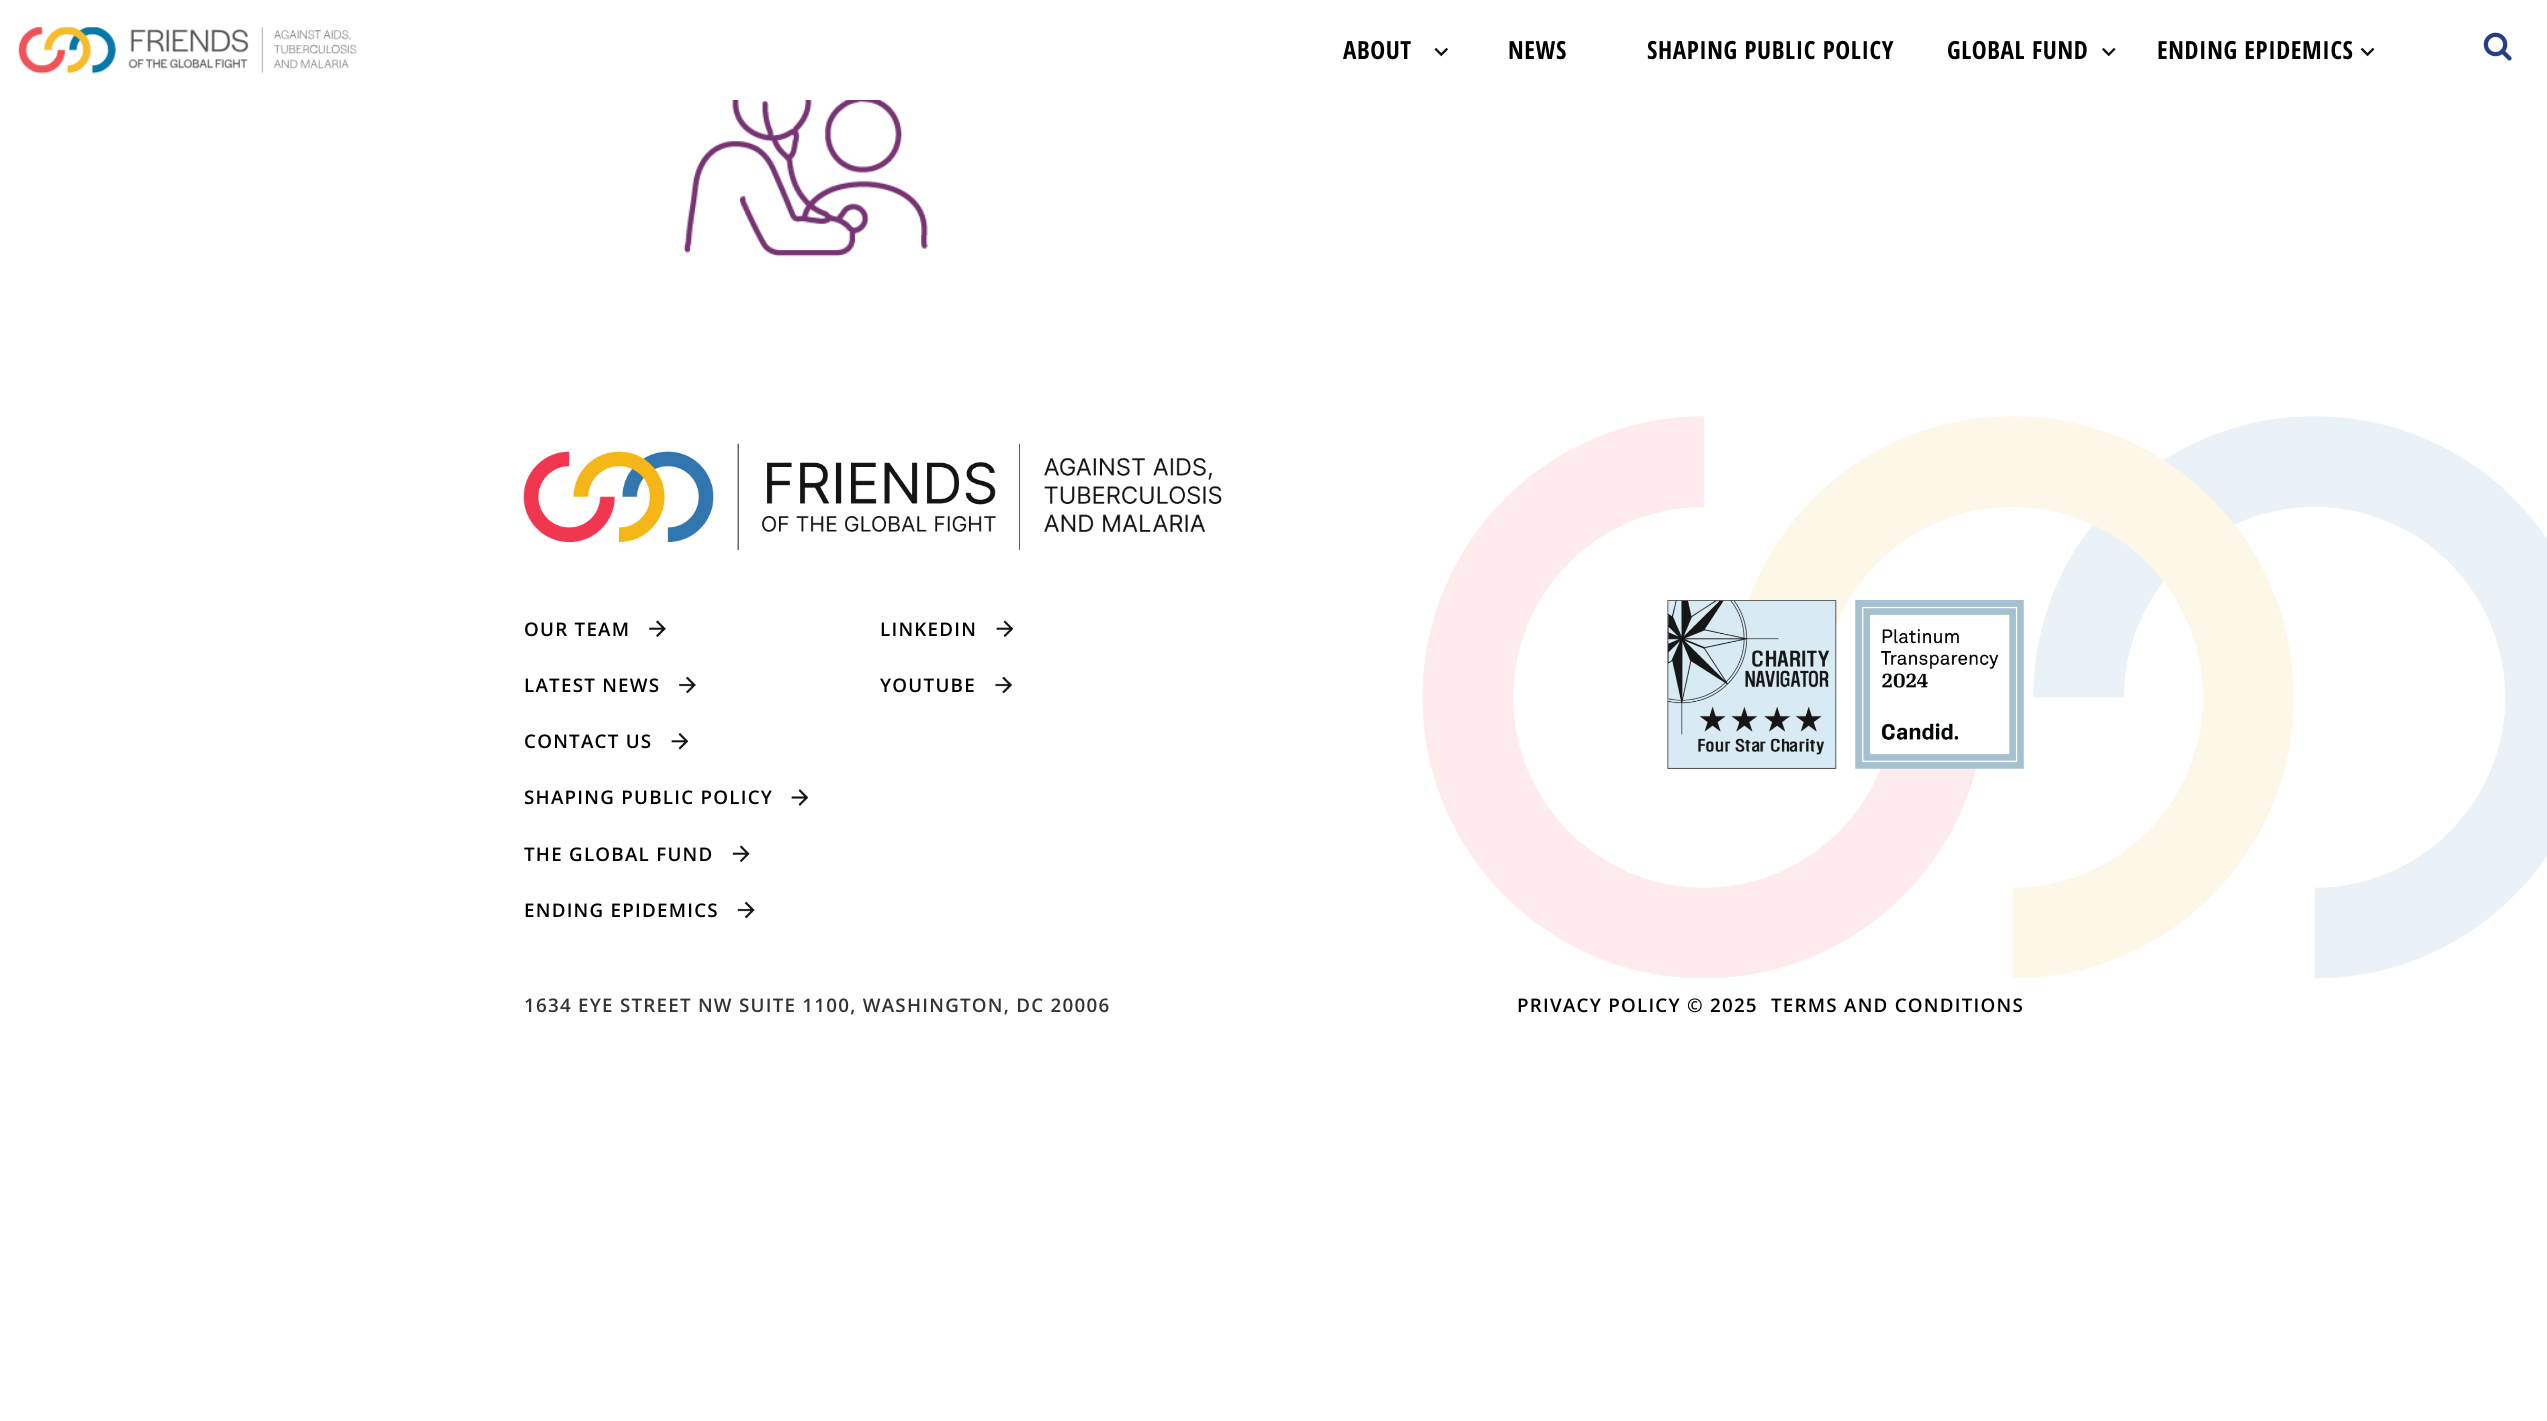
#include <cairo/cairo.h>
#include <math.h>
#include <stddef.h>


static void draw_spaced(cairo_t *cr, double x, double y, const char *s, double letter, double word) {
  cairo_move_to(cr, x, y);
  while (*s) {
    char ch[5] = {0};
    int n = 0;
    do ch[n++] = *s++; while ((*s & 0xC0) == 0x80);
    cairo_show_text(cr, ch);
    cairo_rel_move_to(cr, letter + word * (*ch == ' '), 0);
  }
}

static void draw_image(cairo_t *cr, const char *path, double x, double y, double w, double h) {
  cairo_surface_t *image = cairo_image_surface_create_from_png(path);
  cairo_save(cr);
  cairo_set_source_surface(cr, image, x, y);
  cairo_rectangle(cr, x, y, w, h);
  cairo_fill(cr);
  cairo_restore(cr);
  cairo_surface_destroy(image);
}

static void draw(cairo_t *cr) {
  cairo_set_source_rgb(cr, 1, 1, 1);
  cairo_paint(cr);
  draw_image(cr, "images/1.png", 18, 27, 339, 47);
  draw_image(cr, "images/2.png", 1434, 47, 14, 10);
  draw_image(cr, "images/3.png", 2102, 47, 14, 10);
  draw_image(cr, "images/4.png", 2360, 47, 15, 10);
  draw_image(cr, "images/5.png", 2483, 32, 29, 29);
  draw_image(cr, "images/6.png", 683, 100, 245, 157);
  draw_image(cr, "images/7.png", 1422, 416, 1125, 562);
  draw_image(cr, "images/8.png", 523, 443, 699, 107);
  draw_image(cr, "images/9.png", 648, 620, 18, 18);
  draw_image(cr, "images/10.png", 679, 676, 17, 18);
  draw_image(cr, "images/11.png", 671, 732, 18, 18);
  draw_image(cr, "images/12.png", 791, 789, 18, 17);
  draw_image(cr, "images/13.png", 732, 845, 18, 18);
  draw_image(cr, "images/14.png", 737, 901, 18, 18);
  draw_image(cr, "images/15.png", 996, 620, 18, 18);
  draw_image(cr, "images/16.png", 995, 676, 18, 18);
  draw_image(cr, "images/17.png", 1667, 600, 170, 169);
  draw_image(cr, "images/18.png", 1855, 600, 169, 169);
  cairo_select_font_face(cr, "Open Sans Condensed", CAIRO_FONT_SLANT_NORMAL, CAIRO_FONT_WEIGHT_BOLD);
  cairo_set_font_size(cr, 25);
  cairo_set_source_rgb(cr, 0, 0, 0);
  draw_spaced(cr, 1343, 59, "ABOUT", 0.6, 0);
  draw_spaced(cr, 1508, 59, "NEWS", 0.6, 0);
  draw_spaced(cr, 1647, 59, "SHAPING PUBLIC POLICY", 0.6, 0);
  draw_spaced(cr, 1947, 59, "GLOBAL FUND", 0.6, 0);
  draw_spaced(cr, 2157, 59, "ENDING EPIDEMICS", 0.6, 0);
  cairo_select_font_face(cr, "Open Sans SemiBold", CAIRO_FONT_SLANT_NORMAL, CAIRO_FONT_WEIGHT_NORMAL);
  cairo_set_font_size(cr, 18.75);
  draw_spaced(cr, 524, 636, "OUR TEAM", 1.25, 0);
  draw_spaced(cr, 524, 692, "LATEST NEWS", 1.25, 0);
  draw_spaced(cr, 524, 748, "CONTACT US", 1.25, 0);
  draw_spaced(cr, 524, 804, "SHAPING PUBLIC POLICY", 1.25, 0);
  draw_spaced(cr, 524, 861, "THE GLOBAL FUND", 1.25, 0);
  draw_spaced(cr, 524, 917, "ENDING EPIDEMICS", 1.25, 0);
  draw_spaced(cr, 880, 636, "LINKEDIN", 1.25, 0);
  draw_spaced(cr, 880, 692, "YOUTUBE", 1.25, 0);
  cairo_set_source_rgb(cr, 51 / 255.0, 51 / 255.0, 51 / 255.0);
  draw_spaced(cr, 524, 1012, "1634 EYE STREET NW SUITE 1100, WASHINGTON, DC 20006", 1.25, 0);
  cairo_set_source_rgb(cr, 0, 0, 0);
  draw_spaced(cr, 1517, 1012, "PRIVACY POLICY © 2025", 1.25, 0);
  draw_spaced(cr, 1771, 1012, "TERMS AND CONDITIONS", 1.25, 0);
}

int main(void) {
  cairo_surface_t *surface = cairo_image_surface_create(CAIRO_FORMAT_RGB24, 2547, 1421);
  cairo_t *cr = cairo_create(surface);
  cairo_font_options_t *options = cairo_font_options_create();
  cairo_font_options_set_hint_metrics(options, CAIRO_HINT_METRICS_OFF);
  cairo_font_options_set_hint_style(options, CAIRO_HINT_STYLE_NONE);
  cairo_set_font_options(cr, options);
  cairo_set_miter_limit(cr, 4);
  draw(cr);
  cairo_surface_write_to_png(surface, "out.png");
  cairo_font_options_destroy(options);
  cairo_destroy(cr);
  cairo_surface_destroy(surface);
  return 0;
}
